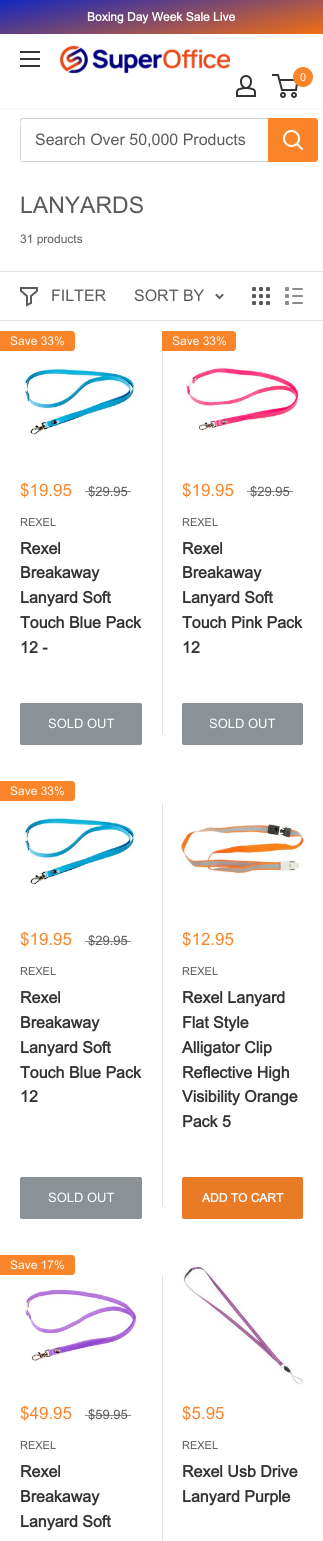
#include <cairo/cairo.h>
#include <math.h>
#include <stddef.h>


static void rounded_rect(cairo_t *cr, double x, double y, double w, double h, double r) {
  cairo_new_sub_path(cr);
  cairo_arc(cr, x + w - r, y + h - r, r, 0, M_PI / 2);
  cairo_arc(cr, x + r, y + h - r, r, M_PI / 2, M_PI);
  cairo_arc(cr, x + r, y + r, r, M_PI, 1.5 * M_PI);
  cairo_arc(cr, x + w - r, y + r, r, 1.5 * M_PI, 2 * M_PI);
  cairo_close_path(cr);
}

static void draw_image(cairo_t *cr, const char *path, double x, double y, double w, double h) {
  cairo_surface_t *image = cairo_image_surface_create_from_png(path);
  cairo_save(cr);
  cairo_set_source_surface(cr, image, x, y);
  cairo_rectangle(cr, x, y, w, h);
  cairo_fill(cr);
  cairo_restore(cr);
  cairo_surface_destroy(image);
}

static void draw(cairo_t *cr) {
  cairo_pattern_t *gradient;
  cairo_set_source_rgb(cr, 1, 1, 1);
  cairo_paint(cr);
  gradient = cairo_pattern_create_linear(171, 64, 152, -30);
  cairo_pattern_add_color_stop_rgba(gradient, 0, 241 / 255.0, 110 / 255.0, 20 / 255.0, 1);
  cairo_pattern_add_color_stop_rgba(gradient, 1, 19 / 255.0, 39 / 255.0, 191 / 255.0, 1);
  cairo_set_source(cr, gradient);
  cairo_pattern_destroy(gradient);
  cairo_rectangle(cr, 0, 0, 323, 34);
  cairo_fill(cr);
  cairo_set_source_rgb(cr, 243 / 255.0, 243 / 255.0, 243 / 255.0);
  cairo_rectangle(cr, 0, 108, 323, 1);
  cairo_fill(cr);
  draw_image(cr, "images/1.png", 20, 51, 20, 16);
  draw_image(cr, "images/2.png", 60, 45, 170, 29);
  draw_image(cr, "images/3.png", 236, 75, 20, 22);
  cairo_arc(cr, 283, 95, 2, 0, 2 * M_PI);
  cairo_set_source_rgb(cr, 51 / 255.0, 51 / 255.0, 51 / 255.0);
  cairo_stroke(cr);
  cairo_arc(cr, 294, 95, 2, 0, 2 * M_PI);
  cairo_stroke(cr);
  cairo_new_path(cr);
  cairo_move_to(cr, 279.5, 80);
  cairo_line_to(cr, 297.5, 80);
  cairo_line_to(cr, 296, 90);
  cairo_line_to(cr, 282, 90);
  cairo_line_to(cr, 278, 75);
  cairo_line_to(cr, 272, 75);
  cairo_stroke(cr);
  cairo_set_source_rgb(cr, 250 / 255.0, 132 / 255.0, 41 / 255.0);
  cairo_arc(cr, 303, 77, 10, 0, 2 * M_PI);
  cairo_fill(cr);
  cairo_set_source_rgb(cr, 209 / 255.0, 213 / 255.0, 215 / 255.0);
  cairo_new_path(cr);
  cairo_move_to(cr, 21, 161);
  cairo_curve_to(cr, 21, 162, 22, 162, 23, 162);
  cairo_line_to(cr, 300, 162);
  cairo_curve_to(cr, 302, 162, 303, 161, 303, 159);
  cairo_line_to(cr, 303, 121);
  cairo_curve_to(cr, 303, 120, 303, 119, 302, 119);
  cairo_line_to(cr, 302, 152);
  cairo_curve_to(cr, 302, 154, 304, 161, 299, 161);
  cairo_close_path(cr);
  cairo_fill(cr);
  cairo_new_path(cr);
  cairo_move_to(cr, 24, 119);
  cairo_line_to(cr, 302, 119);
  cairo_curve_to(cr, 302, 118, 301, 118, 300, 118);
  cairo_line_to(cr, 23, 118);
  cairo_curve_to(cr, 21, 118, 20, 119, 20, 121);
  cairo_line_to(cr, 20, 159);
  cairo_curve_to(cr, 20, 160, 20, 161, 21, 161);
  cairo_line_to(cr, 21, 128);
  cairo_curve_to(cr, 21, 126, 19, 119, 24, 119);
  cairo_close_path(cr);
  cairo_fill(cr);
  cairo_set_source_rgb(cr, 250 / 255.0, 132 / 255.0, 41 / 255.0);
  cairo_new_path(cr);
  cairo_move_to(cr, 268, 118);
  cairo_line_to(cr, 315, 118);
  cairo_curve_to(cr, 316.5, 118, 318, 119.5, 318, 121);
  cairo_line_to(cr, 318, 159);
  cairo_curve_to(cr, 318, 160.5, 316.5, 162, 315, 162);
  cairo_line_to(cr, 268, 162);
  cairo_close_path(cr);
  cairo_fill(cr);
  cairo_new_path(cr);
  cairo_move_to(cr, 302, 149);
  cairo_line_to(cr, 297, 144);
  cairo_set_source_rgb(cr, 1, 1, 1);
  cairo_set_line_cap(cr, CAIRO_LINE_CAP_SQUARE);
  cairo_stroke(cr);
  cairo_arc(cr, 291.5, 138.5, 7.5, 0, 2 * M_PI);
  cairo_set_line_cap(cr, CAIRO_LINE_CAP_BUTT);
  cairo_stroke(cr);
  cairo_set_source_rgb(cr, 225 / 255.0, 227 / 255.0, 228 / 255.0);
  cairo_rectangle(cr, 0, 271, 323, 1);
  cairo_fill(cr);
  cairo_rectangle(cr, 0, 320, 323, 1);
  cairo_fill(cr);
  cairo_new_path(cr);
  cairo_move_to(cr, 37, 291);
  cairo_line_to(cr, 31, 296);
  cairo_line_to(cr, 31, 303);
  cairo_line_to(cr, 27, 305);
  cairo_line_to(cr, 27, 296);
  cairo_line_to(cr, 21, 291);
  cairo_line_to(cr, 21, 288);
  cairo_line_to(cr, 37, 288);
  cairo_close_path(cr);
  cairo_set_source_rgb(cr, 91 / 255.0, 91 / 255.0, 91 / 255.0);
  cairo_set_line_cap(cr, CAIRO_LINE_CAP_SQUARE);
  cairo_stroke(cr);
  cairo_new_path(cr);
  cairo_move_to(cr, 222.5, 295);
  cairo_line_to(cr, 219.5, 298);
  cairo_line_to(cr, 216.5, 295);
  cairo_set_line_width(cr, 1.9);
  cairo_stroke(cr);
  draw_image(cr, "images/4.png", 252, 287, 18, 18);
  draw_image(cr, "images/5.png", 285, 287, 18, 18);
  cairo_set_source_rgb(cr, 250 / 255.0, 132 / 255.0, 41 / 255.0);
  cairo_new_path(cr);
  cairo_move_to(cr, 0, 331);
  cairo_line_to(cr, 72, 331);
  cairo_curve_to(cr, 73.5, 331, 75, 332.5, 75, 334);
  cairo_line_to(cr, 75, 348);
  cairo_curve_to(cr, 75, 349.5, 73.5, 351, 72, 351);
  cairo_line_to(cr, 0, 351);
  cairo_close_path(cr);
  cairo_fill(cr);
  draw_image(cr, "images/6.png", 24, 368, 112, 67);
  cairo_set_source_rgb(cr, 225 / 255.0, 227 / 255.0, 228 / 255.0);
  cairo_rectangle(cr, 162, 352, 1, 382);
  cairo_fill(cr);
  cairo_set_source_rgb(cr, 138 / 255.0, 146 / 255.0, 151 / 255.0);
  rounded_rect(cr, 20.5, 703.5, 121, 41, 1.5);
  cairo_fill_preserve(cr);
  cairo_set_line_width(cr, 1);
  cairo_set_line_cap(cr, CAIRO_LINE_CAP_BUTT);
  cairo_stroke(cr);
  cairo_set_source_rgb(cr, 250 / 255.0, 132 / 255.0, 41 / 255.0);
  cairo_new_path(cr);
  cairo_move_to(cr, 162, 331);
  cairo_line_to(cr, 233, 331);
  cairo_curve_to(cr, 234.5, 331, 236, 332.5, 236, 334);
  cairo_line_to(cr, 236, 348);
  cairo_curve_to(cr, 236, 349.5, 234.5, 351, 233, 351);
  cairo_line_to(cr, 162, 351);
  cairo_close_path(cr);
  cairo_fill(cr);
  draw_image(cr, "images/7.png", 186, 367, 113, 64);
  cairo_set_source_rgb(cr, 138 / 255.0, 146 / 255.0, 151 / 255.0);
  rounded_rect(cr, 182.5, 703.5, 120, 41, 1.5);
  cairo_fill_preserve(cr);
  cairo_stroke(cr);
  cairo_set_source_rgb(cr, 250 / 255.0, 132 / 255.0, 41 / 255.0);
  cairo_new_path(cr);
  cairo_move_to(cr, 0, 781);
  cairo_line_to(cr, 72, 781);
  cairo_curve_to(cr, 73.5, 781, 75, 782.5, 75, 784);
  cairo_line_to(cr, 75, 798);
  cairo_curve_to(cr, 75, 799.5, 73.5, 801, 72, 801);
  cairo_line_to(cr, 0, 801);
  cairo_close_path(cr);
  cairo_fill(cr);
  draw_image(cr, "images/8.png", 24, 817, 112, 68);
  cairo_set_source_rgb(cr, 225 / 255.0, 227 / 255.0, 228 / 255.0);
  cairo_rectangle(cr, 162, 803, 1, 403);
  cairo_fill(cr);
  cairo_set_source_rgb(cr, 138 / 255.0, 146 / 255.0, 151 / 255.0);
  rounded_rect(cr, 20.5, 1177.5, 121, 41, 1.5);
  cairo_fill_preserve(cr);
  cairo_stroke(cr);
  draw_image(cr, "images/9.png", 181, 824, 123, 52);
  cairo_set_source_rgb(cr, 234 / 255.0, 123 / 255.0, 38 / 255.0);
  rounded_rect(cr, 182, 1177, 121, 42, 2);
  cairo_fill(cr);
  cairo_set_source_rgb(cr, 250 / 255.0, 132 / 255.0, 41 / 255.0);
  cairo_new_path(cr);
  cairo_move_to(cr, 0, 1255);
  cairo_line_to(cr, 72, 1255);
  cairo_curve_to(cr, 73.5, 1255, 75, 1256.5, 75, 1258);
  cairo_line_to(cr, 75, 1272);
  cairo_curve_to(cr, 75, 1273.5, 73.5, 1275, 72, 1275);
  cairo_line_to(cr, 0, 1275);
  cairo_close_path(cr);
  cairo_fill(cr);
  draw_image(cr, "images/10.png", 25, 1288, 112, 74);
  cairo_set_source_rgb(cr, 225 / 255.0, 227 / 255.0, 228 / 255.0);
  cairo_rectangle(cr, 162, 1275, 1, 266);
  cairo_fill(cr);
  draw_image(cr, "images/11.png", 182, 1265, 121, 120);
  cairo_select_font_face(cr, "Arial", CAIRO_FONT_SLANT_NORMAL, CAIRO_FONT_WEIGHT_BOLD);
  cairo_set_font_size(cr, 12);
  cairo_set_source_rgb(cr, 1, 1, 1);
  cairo_move_to(cr, 87, 21);
  cairo_show_text(cr, "Boxing Day Week Sale Live");
  cairo_select_font_face(cr, "Arial", CAIRO_FONT_SLANT_NORMAL, CAIRO_FONT_WEIGHT_NORMAL);
  cairo_set_font_size(cr, 11);
  cairo_move_to(cr, 300, 81);
  cairo_show_text(cr, "0");
  cairo_set_font_size(cr, 16);
  cairo_set_source_rgb(cr, 91 / 255.0, 91 / 255.0, 91 / 255.0);
  cairo_move_to(cr, 35, 145);
  cairo_show_text(cr, "Search Over 50,000 Products");
  cairo_set_font_size(cr, 23);
  cairo_move_to(cr, 20, 213);
  cairo_show_text(cr, "LANYARDS");
  cairo_set_font_size(cr, 12);
  cairo_move_to(cr, 20, 243);
  cairo_show_text(cr, "31 products");
  cairo_set_font_size(cr, 16);
  cairo_move_to(cr, 51, 301);
  cairo_show_text(cr, "FILTER");
  cairo_move_to(cr, 134, 301);
  cairo_show_text(cr, "SORT BY");
  cairo_set_font_size(cr, 12);
  cairo_set_source_rgb(cr, 1, 1, 1);
  cairo_move_to(cr, 10, 345);
  cairo_show_text(cr, "Save 33%");
  cairo_set_font_size(cr, 17);
  cairo_set_source_rgb(cr, 250 / 255.0, 132 / 255.0, 41 / 255.0);
  cairo_move_to(cr, 20, 496);
  cairo_show_text(cr, "$19.95");
  cairo_set_font_size(cr, 13);
  cairo_set_source_rgb(cr, 91 / 255.0, 91 / 255.0, 91 / 255.0);
  cairo_move_to(cr, 88, 496);
  cairo_show_text(cr, "$29.95");
  cairo_set_source_rgba(cr, 91 / 255.0, 91 / 255.0, 91 / 255.0, 0.7);
  cairo_rectangle(cr, 85, 491, 46, 1);
  cairo_fill(cr);
  cairo_set_font_size(cr, 11);
  cairo_set_source_rgb(cr, 91 / 255.0, 91 / 255.0, 91 / 255.0);
  cairo_move_to(cr, 20, 526);
  cairo_show_text(cr, "REXEL");
  cairo_select_font_face(cr, "Arial", CAIRO_FONT_SLANT_NORMAL, CAIRO_FONT_WEIGHT_BOLD);
  cairo_set_font_size(cr, 16);
  cairo_set_source_rgb(cr, 51 / 255.0, 51 / 255.0, 51 / 255.0);
  cairo_move_to(cr, 20, 554);
  cairo_show_text(cr, "Rexel");
  cairo_move_to(cr, 20, 578);
  cairo_show_text(cr, "Breakaway");
  cairo_move_to(cr, 20, 603);
  cairo_show_text(cr, "Lanyard Soft");
  cairo_move_to(cr, 20, 628);
  cairo_show_text(cr, "Touch Blue Pack");
  cairo_move_to(cr, 20, 653);
  cairo_show_text(cr, "12 -");
  cairo_select_font_face(cr, "Arial", CAIRO_FONT_SLANT_NORMAL, CAIRO_FONT_WEIGHT_NORMAL);
  cairo_set_font_size(cr, 13);
  cairo_set_source_rgb(cr, 1, 1, 1);
  cairo_move_to(cr, 48, 728);
  cairo_show_text(cr, "SOLD OUT");
  cairo_set_font_size(cr, 12);
  cairo_move_to(cr, 172, 345);
  cairo_show_text(cr, "Save 33%");
  cairo_set_font_size(cr, 17);
  cairo_set_source_rgb(cr, 250 / 255.0, 132 / 255.0, 41 / 255.0);
  cairo_move_to(cr, 182, 496);
  cairo_show_text(cr, "$19.95");
  cairo_set_font_size(cr, 13);
  cairo_set_source_rgb(cr, 91 / 255.0, 91 / 255.0, 91 / 255.0);
  cairo_move_to(cr, 250, 496);
  cairo_show_text(cr, "$29.95");
  cairo_set_source_rgba(cr, 91 / 255.0, 91 / 255.0, 91 / 255.0, 0.7);
  cairo_rectangle(cr, 247, 491, 46, 1);
  cairo_fill(cr);
  cairo_set_font_size(cr, 11);
  cairo_set_source_rgb(cr, 91 / 255.0, 91 / 255.0, 91 / 255.0);
  cairo_move_to(cr, 182, 526);
  cairo_show_text(cr, "REXEL");
  cairo_select_font_face(cr, "Arial", CAIRO_FONT_SLANT_NORMAL, CAIRO_FONT_WEIGHT_BOLD);
  cairo_set_font_size(cr, 16);
  cairo_set_source_rgb(cr, 51 / 255.0, 51 / 255.0, 51 / 255.0);
  cairo_move_to(cr, 182, 554);
  cairo_show_text(cr, "Rexel");
  cairo_move_to(cr, 182, 578);
  cairo_show_text(cr, "Breakaway");
  cairo_move_to(cr, 182, 603);
  cairo_show_text(cr, "Lanyard Soft");
  cairo_move_to(cr, 182, 628);
  cairo_show_text(cr, "Touch Pink Pack");
  cairo_move_to(cr, 182, 653);
  cairo_show_text(cr, "12");
  cairo_select_font_face(cr, "Arial", CAIRO_FONT_SLANT_NORMAL, CAIRO_FONT_WEIGHT_NORMAL);
  cairo_set_font_size(cr, 13);
  cairo_set_source_rgb(cr, 1, 1, 1);
  cairo_move_to(cr, 209, 728);
  cairo_show_text(cr, "SOLD OUT");
  cairo_set_font_size(cr, 12);
  cairo_move_to(cr, 10, 795);
  cairo_show_text(cr, "Save 33%");
  cairo_set_font_size(cr, 17);
  cairo_set_source_rgb(cr, 250 / 255.0, 132 / 255.0, 41 / 255.0);
  cairo_move_to(cr, 20, 945);
  cairo_show_text(cr, "$19.95");
  cairo_set_font_size(cr, 13);
  cairo_set_source_rgb(cr, 91 / 255.0, 91 / 255.0, 91 / 255.0);
  cairo_move_to(cr, 88, 945);
  cairo_show_text(cr, "$29.95");
  cairo_set_source_rgba(cr, 91 / 255.0, 91 / 255.0, 91 / 255.0, 0.7);
  cairo_rectangle(cr, 85, 941, 46, 1);
  cairo_fill(cr);
  cairo_set_font_size(cr, 11);
  cairo_set_source_rgb(cr, 91 / 255.0, 91 / 255.0, 91 / 255.0);
  cairo_move_to(cr, 20, 975);
  cairo_show_text(cr, "REXEL");
  cairo_select_font_face(cr, "Arial", CAIRO_FONT_SLANT_NORMAL, CAIRO_FONT_WEIGHT_BOLD);
  cairo_set_font_size(cr, 16);
  cairo_set_source_rgb(cr, 51 / 255.0, 51 / 255.0, 51 / 255.0);
  cairo_move_to(cr, 20, 1003);
  cairo_show_text(cr, "Rexel");
  cairo_move_to(cr, 20, 1028);
  cairo_show_text(cr, "Breakaway");
  cairo_move_to(cr, 20, 1053);
  cairo_show_text(cr, "Lanyard Soft");
  cairo_move_to(cr, 20, 1078);
  cairo_show_text(cr, "Touch Blue Pack");
  cairo_move_to(cr, 20, 1102);
  cairo_show_text(cr, "12");
  cairo_select_font_face(cr, "Arial", CAIRO_FONT_SLANT_NORMAL, CAIRO_FONT_WEIGHT_NORMAL);
  cairo_set_font_size(cr, 13);
  cairo_set_source_rgb(cr, 1, 1, 1);
  cairo_move_to(cr, 48, 1202);
  cairo_show_text(cr, "SOLD OUT");
  cairo_set_font_size(cr, 17);
  cairo_set_source_rgb(cr, 250 / 255.0, 132 / 255.0, 41 / 255.0);
  cairo_move_to(cr, 182, 945);
  cairo_show_text(cr, "$12.95");
  cairo_set_font_size(cr, 11);
  cairo_set_source_rgb(cr, 91 / 255.0, 91 / 255.0, 91 / 255.0);
  cairo_move_to(cr, 182, 975);
  cairo_show_text(cr, "REXEL");
  cairo_select_font_face(cr, "Arial", CAIRO_FONT_SLANT_NORMAL, CAIRO_FONT_WEIGHT_BOLD);
  cairo_set_font_size(cr, 16);
  cairo_set_source_rgb(cr, 51 / 255.0, 51 / 255.0, 51 / 255.0);
  cairo_move_to(cr, 182, 1003);
  cairo_show_text(cr, "Rexel Lanyard");
  cairo_move_to(cr, 182, 1028);
  cairo_show_text(cr, "Flat Style");
  cairo_move_to(cr, 182, 1053);
  cairo_show_text(cr, "Alligator Clip");
  cairo_move_to(cr, 182, 1078);
  cairo_show_text(cr, "Reflective High");
  cairo_move_to(cr, 182, 1102);
  cairo_show_text(cr, "Visibility Orange");
  cairo_move_to(cr, 182, 1127);
  cairo_show_text(cr, "Pack 5");
  cairo_set_font_size(cr, 12);
  cairo_set_source_rgb(cr, 1, 1, 1);
  cairo_move_to(cr, 202, 1202);
  cairo_show_text(cr, "ADD TO CART");
  cairo_select_font_face(cr, "Arial", CAIRO_FONT_SLANT_NORMAL, CAIRO_FONT_WEIGHT_NORMAL);
  cairo_move_to(cr, 10, 1269);
  cairo_show_text(cr, "Save 17%");
  cairo_set_font_size(cr, 17);
  cairo_set_source_rgb(cr, 250 / 255.0, 132 / 255.0, 41 / 255.0);
  cairo_move_to(cr, 20, 1419);
  cairo_show_text(cr, "$49.95");
  cairo_set_font_size(cr, 13);
  cairo_set_source_rgb(cr, 91 / 255.0, 91 / 255.0, 91 / 255.0);
  cairo_move_to(cr, 88, 1419);
  cairo_show_text(cr, "$59.95");
  cairo_set_source_rgba(cr, 91 / 255.0, 91 / 255.0, 91 / 255.0, 0.7);
  cairo_rectangle(cr, 85, 1415, 46, 1);
  cairo_fill(cr);
  cairo_set_font_size(cr, 11);
  cairo_set_source_rgb(cr, 91 / 255.0, 91 / 255.0, 91 / 255.0);
  cairo_move_to(cr, 20, 1449);
  cairo_show_text(cr, "REXEL");
  cairo_select_font_face(cr, "Arial", CAIRO_FONT_SLANT_NORMAL, CAIRO_FONT_WEIGHT_BOLD);
  cairo_set_font_size(cr, 16);
  cairo_set_source_rgb(cr, 51 / 255.0, 51 / 255.0, 51 / 255.0);
  cairo_move_to(cr, 20, 1477);
  cairo_show_text(cr, "Rexel");
  cairo_move_to(cr, 20, 1502);
  cairo_show_text(cr, "Breakaway");
  cairo_move_to(cr, 20, 1527);
  cairo_show_text(cr, "Lanyard Soft");
  cairo_select_font_face(cr, "Arial", CAIRO_FONT_SLANT_NORMAL, CAIRO_FONT_WEIGHT_NORMAL);
  cairo_set_font_size(cr, 17);
  cairo_set_source_rgb(cr, 250 / 255.0, 132 / 255.0, 41 / 255.0);
  cairo_move_to(cr, 182, 1419);
  cairo_show_text(cr, "$5.95");
  cairo_set_font_size(cr, 11);
  cairo_set_source_rgb(cr, 91 / 255.0, 91 / 255.0, 91 / 255.0);
  cairo_move_to(cr, 182, 1449);
  cairo_show_text(cr, "REXEL");
  cairo_select_font_face(cr, "Arial", CAIRO_FONT_SLANT_NORMAL, CAIRO_FONT_WEIGHT_BOLD);
  cairo_set_font_size(cr, 16);
  cairo_set_source_rgb(cr, 51 / 255.0, 51 / 255.0, 51 / 255.0);
  cairo_move_to(cr, 182, 1477);
  cairo_show_text(cr, "Rexel Usb Drive");
  cairo_move_to(cr, 182, 1502);
  cairo_show_text(cr, "Lanyard Purple");
}

int main(void) {
  cairo_surface_t *surface = cairo_image_surface_create(CAIRO_FORMAT_RGB24, 323, 1541);
  cairo_t *cr = cairo_create(surface);
  cairo_font_options_t *options = cairo_font_options_create();
  cairo_font_options_set_hint_metrics(options, CAIRO_HINT_METRICS_OFF);
  cairo_font_options_set_hint_style(options, CAIRO_HINT_STYLE_NONE);
  cairo_set_font_options(cr, options);
  cairo_set_miter_limit(cr, 4);
  draw(cr);
  cairo_surface_write_to_png(surface, "out.png");
  cairo_font_options_destroy(options);
  cairo_destroy(cr);
  cairo_surface_destroy(surface);
  return 0;
}
